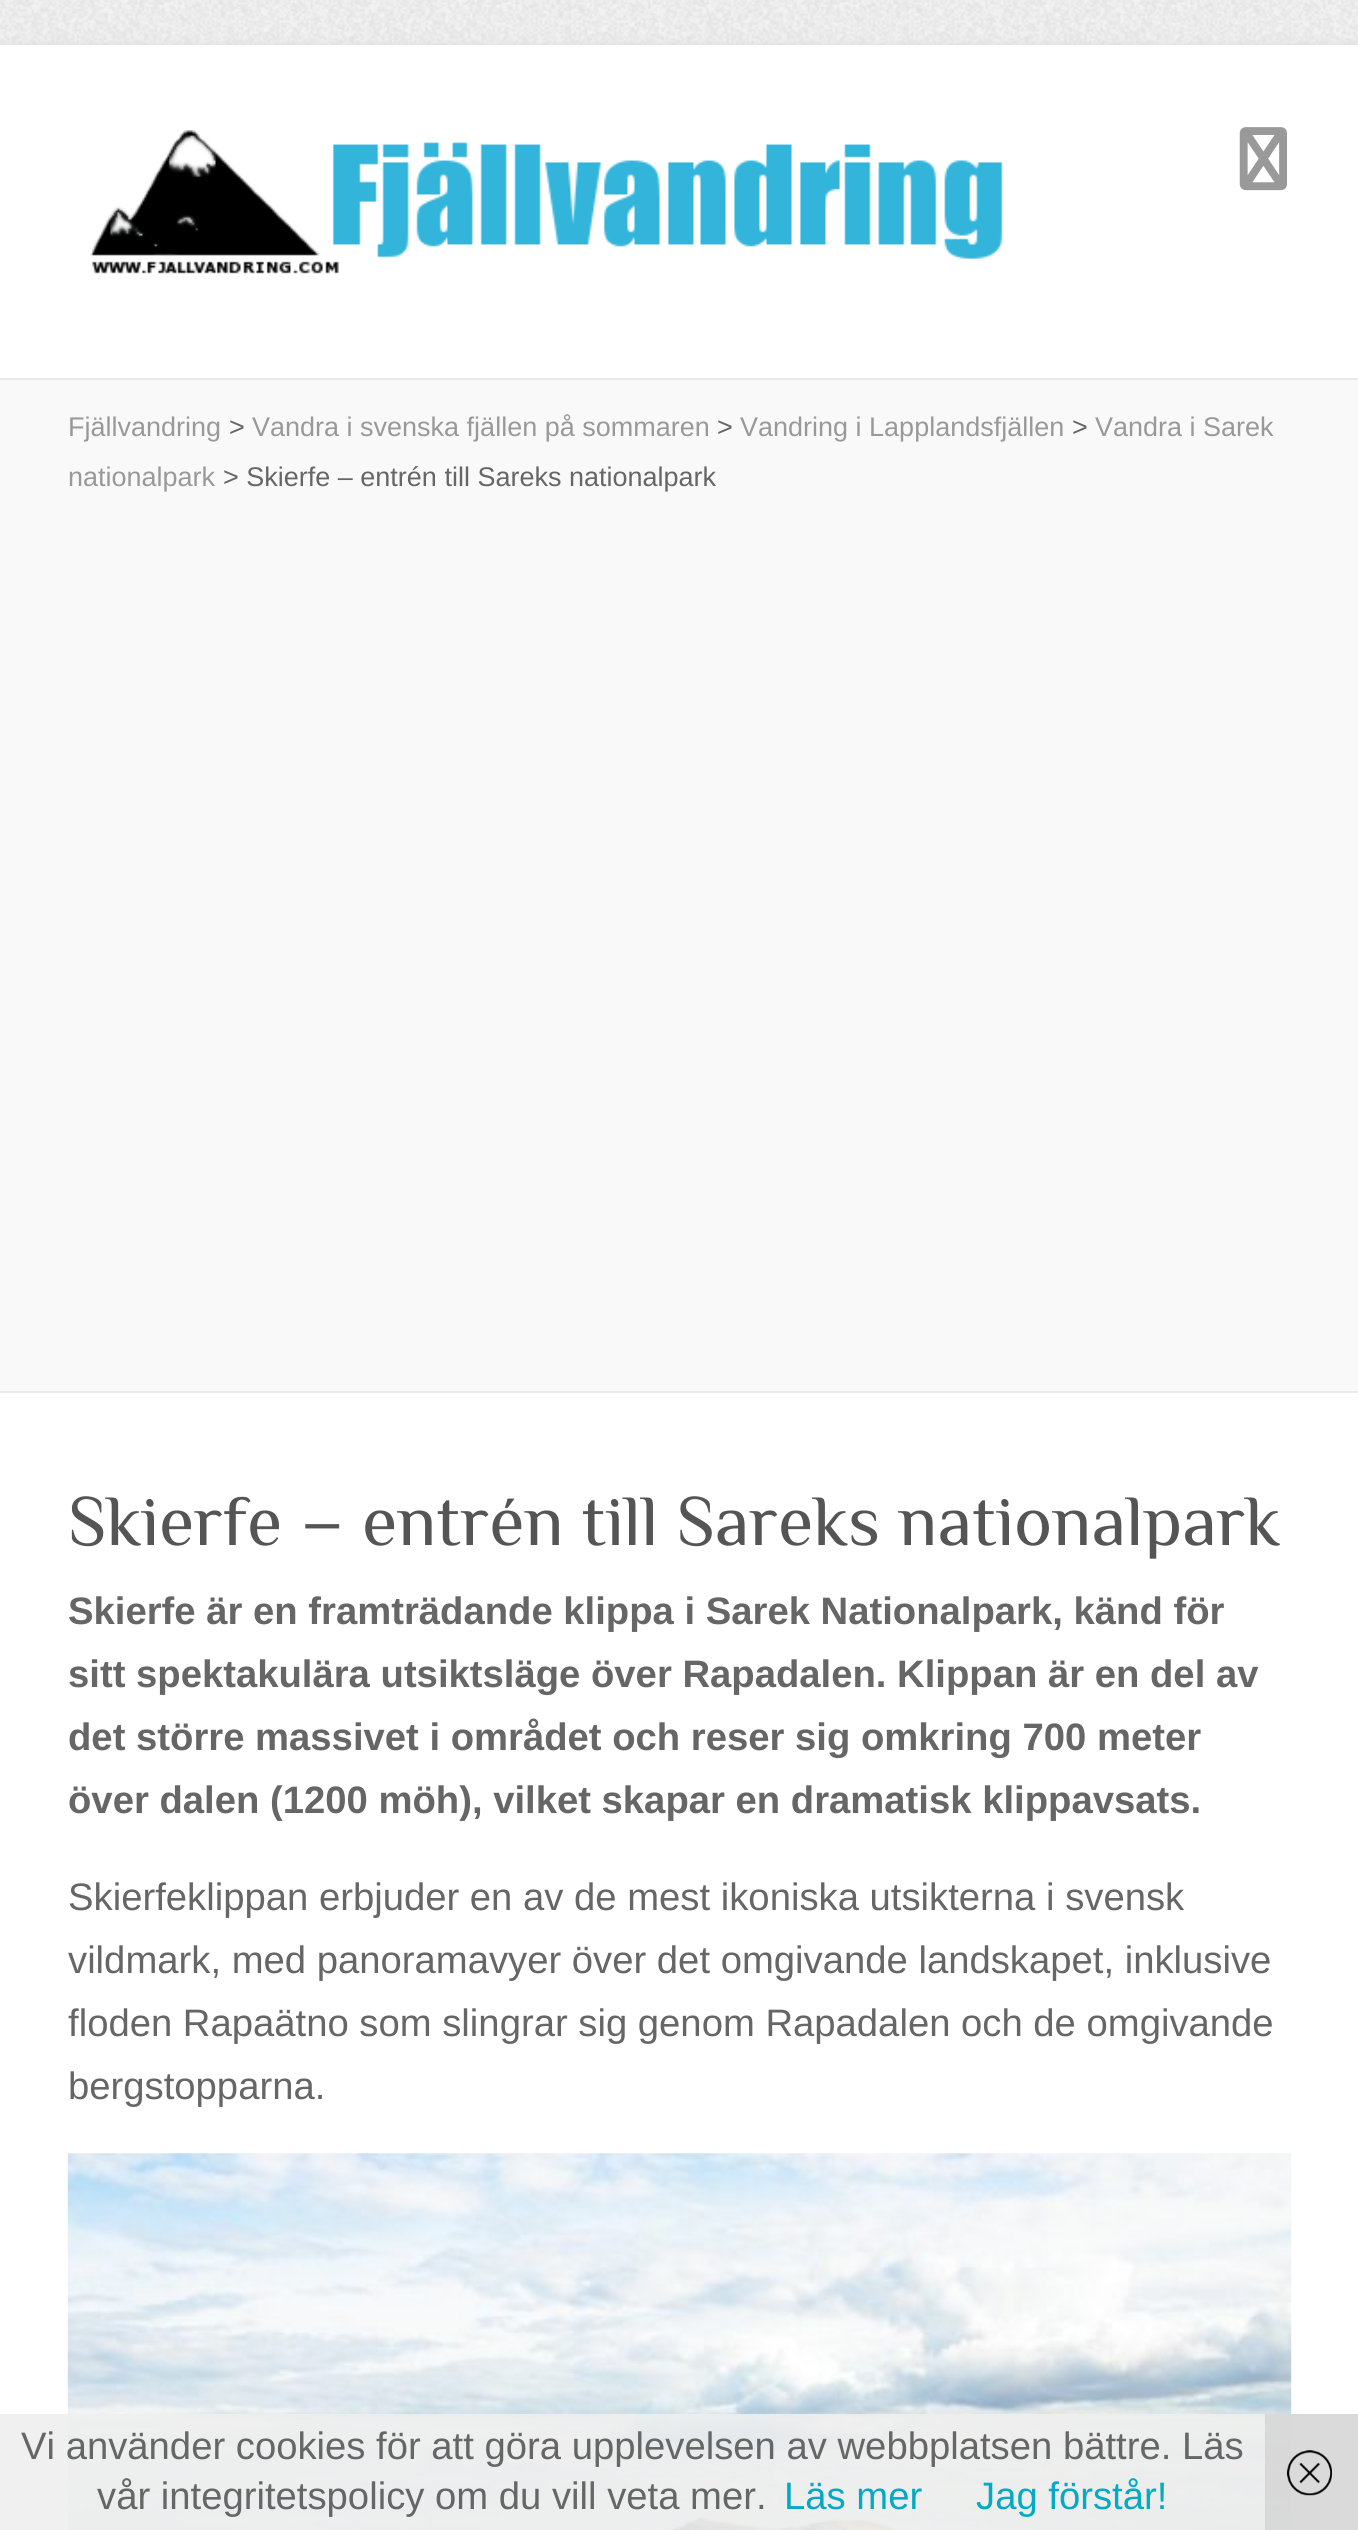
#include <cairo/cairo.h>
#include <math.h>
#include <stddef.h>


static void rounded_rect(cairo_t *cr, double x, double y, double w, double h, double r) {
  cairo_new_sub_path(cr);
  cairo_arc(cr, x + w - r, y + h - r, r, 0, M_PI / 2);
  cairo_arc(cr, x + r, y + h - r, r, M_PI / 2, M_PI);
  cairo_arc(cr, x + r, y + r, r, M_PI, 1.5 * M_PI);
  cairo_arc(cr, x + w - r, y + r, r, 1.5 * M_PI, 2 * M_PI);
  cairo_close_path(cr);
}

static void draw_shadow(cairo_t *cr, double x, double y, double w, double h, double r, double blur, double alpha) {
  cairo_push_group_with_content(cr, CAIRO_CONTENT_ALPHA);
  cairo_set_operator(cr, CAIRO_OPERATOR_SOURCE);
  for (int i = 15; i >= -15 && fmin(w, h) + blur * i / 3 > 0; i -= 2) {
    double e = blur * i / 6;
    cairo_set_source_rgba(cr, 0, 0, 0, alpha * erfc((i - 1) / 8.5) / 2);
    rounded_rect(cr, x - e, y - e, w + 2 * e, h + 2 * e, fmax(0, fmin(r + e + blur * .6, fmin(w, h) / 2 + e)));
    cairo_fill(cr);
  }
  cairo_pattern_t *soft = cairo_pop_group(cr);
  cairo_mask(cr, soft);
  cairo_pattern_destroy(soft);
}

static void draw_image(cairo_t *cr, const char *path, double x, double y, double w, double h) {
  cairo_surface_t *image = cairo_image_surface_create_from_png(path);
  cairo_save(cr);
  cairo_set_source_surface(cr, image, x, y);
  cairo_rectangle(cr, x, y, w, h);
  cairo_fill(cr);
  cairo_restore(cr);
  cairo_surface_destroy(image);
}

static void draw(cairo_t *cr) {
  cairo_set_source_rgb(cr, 1, 1, 1);
  cairo_paint(cr);
  draw_image(cr, "images/1.png", 0, 0, 1358, 45);
  cairo_set_source_rgb(cr, 221 / 255.0, 221 / 255.0, 221 / 255.0);
  draw_shadow(cr, 0, 45, 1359, 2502, 0, 5.5, 1);
  cairo_set_source_rgb(cr, 1, 1, 1);
  cairo_rectangle(cr, 0, 45, 1358, 2485);
  cairo_fill(cr);
  draw_image(cr, "images/2.png", 90, 130, 913, 144);
  draw_image(cr, "images/3.png", 1239, 127, 48, 64);
  cairo_set_source_rgb(cr, 234 / 255.0, 234 / 255.0, 234 / 255.0);
  cairo_rectangle(cr, 0, 378, 1358, 2);
  cairo_fill(cr);
  cairo_set_source_rgb(cr, 249 / 255.0, 249 / 255.0, 249 / 255.0);
  cairo_rectangle(cr, 0, 380, 1358, 1011);
  cairo_fill(cr);
  cairo_set_source_rgb(cr, 234 / 255.0, 234 / 255.0, 234 / 255.0);
  cairo_rectangle(cr, 0, 1391, 1358, 2);
  cairo_fill(cr);
  draw_image(cr, "images/4.png", 67, 2153, 1225, 377);
  cairo_set_source_rgba(cr, 238 / 255.0, 238 / 255.0, 238 / 255.0, 0.9);
  cairo_rectangle(cr, 0, 2414, 1358, 116);
  cairo_fill(cr);
  cairo_set_source_rgba(cr, 204 / 255.0, 204 / 255.0, 204 / 255.0, 0.6);
  cairo_rectangle(cr, 1265, 2414, 93, 116);
  cairo_fill(cr);
  draw_image(cr, "images/5.png", 1287, 2450, 45, 46);
  cairo_select_font_face(cr, "Liberation Sans", CAIRO_FONT_SLANT_NORMAL, CAIRO_FONT_WEIGHT_NORMAL);
  cairo_set_font_size(cr, 27);
  cairo_set_source_rgb(cr, 153 / 255.0, 153 / 255.0, 153 / 255.0);
  cairo_move_to(cr, 68, 436);
  cairo_show_text(cr, "Fjällvandring");
  cairo_set_source_rgb(cr, 102 / 255.0, 102 / 255.0, 102 / 255.0);
  cairo_move_to(cr, 229, 436);
  cairo_show_text(cr, ">");
  cairo_set_source_rgb(cr, 153 / 255.0, 153 / 255.0, 153 / 255.0);
  cairo_move_to(cr, 252, 436);
  cairo_show_text(cr, "Vandra i svenska fjällen på sommaren");
  cairo_set_source_rgb(cr, 102 / 255.0, 102 / 255.0, 102 / 255.0);
  cairo_move_to(cr, 717, 436);
  cairo_show_text(cr, ">");
  cairo_set_source_rgb(cr, 153 / 255.0, 153 / 255.0, 153 / 255.0);
  cairo_move_to(cr, 740, 436);
  cairo_show_text(cr, "Vandring i Lapplandsfjällen");
  cairo_set_source_rgb(cr, 102 / 255.0, 102 / 255.0, 102 / 255.0);
  cairo_move_to(cr, 1072, 436);
  cairo_show_text(cr, ">");
  cairo_set_source_rgb(cr, 153 / 255.0, 153 / 255.0, 153 / 255.0);
  cairo_move_to(cr, 1095, 436);
  cairo_show_text(cr, "Vandra i Sarek");
  cairo_move_to(cr, 68, 486);
  cairo_show_text(cr, "nationalpark");
  cairo_set_source_rgb(cr, 102 / 255.0, 102 / 255.0, 102 / 255.0);
  cairo_move_to(cr, 223, 486);
  cairo_show_text(cr, "> Skierfe – entrén till Sareks nationalpark");
  cairo_select_font_face(cr, "Philosopher", CAIRO_FONT_SLANT_NORMAL, CAIRO_FONT_WEIGHT_NORMAL);
  cairo_set_font_size(cr, 72);
  cairo_set_source_rgb(cr, 85 / 255.0, 85 / 255.0, 85 / 255.0);
  cairo_move_to(cr, 68, 1545);
  cairo_show_text(cr, "Skierfe – entrén till Sareks nationalpark");
  cairo_select_font_face(cr, "Liberation Sans", CAIRO_FONT_SLANT_NORMAL, CAIRO_FONT_WEIGHT_BOLD);
  cairo_set_font_size(cr, 38.25);
  cairo_set_source_rgb(cr, 102 / 255.0, 102 / 255.0, 102 / 255.0);
  cairo_move_to(cr, 68, 1624);
  cairo_show_text(cr, "Skierfe är en framträdande klippa i Sarek Nationalpark, känd för");
  cairo_move_to(cr, 68, 1687);
  cairo_show_text(cr, "sitt spektakulära utsiktsläge över Rapadalen. Klippan är en del av");
  cairo_move_to(cr, 68, 1750);
  cairo_show_text(cr, "det större massivet i området och reser sig omkring 700 meter");
  cairo_move_to(cr, 68, 1813);
  cairo_show_text(cr, "över dalen (1200 möh), vilket skapar en dramatisk klippavsats.");
  cairo_select_font_face(cr, "Liberation Sans", CAIRO_FONT_SLANT_NORMAL, CAIRO_FONT_WEIGHT_NORMAL);
  cairo_move_to(cr, 68, 1910);
  cairo_show_text(cr, "Skierfeklippan erbjuder en av de mest ikoniska utsikterna i svensk");
  cairo_move_to(cr, 68, 1973);
  cairo_show_text(cr, "vildmark, med panoramavyer över det omgivande landskapet, inklusive");
  cairo_move_to(cr, 68, 2036);
  cairo_show_text(cr, "floden Rapaätno som slingrar sig genom Rapadalen och de omgivande");
  cairo_move_to(cr, 68, 2099);
  cairo_show_text(cr, "bergstopparna.");
  cairo_move_to(cr, 21, 2459);
  cairo_show_text(cr, "Vi använder cookies för att göra upplevelsen av webbplatsen bättre. Läs");
  cairo_move_to(cr, 97, 2509);
  cairo_show_text(cr, "vår integritetspolicy om du vill veta mer.");
  cairo_set_source_rgb(cr, 5 / 255.0, 169 / 255.0, 197 / 255.0);
  cairo_move_to(cr, 784, 2509);
  cairo_show_text(cr, "Läs mer");
  cairo_move_to(cr, 976, 2509);
  cairo_show_text(cr, "Jag förstår!");
}

int main(void) {
  cairo_surface_t *surface = cairo_image_surface_create(CAIRO_FORMAT_RGB24, 1358, 2530);
  cairo_t *cr = cairo_create(surface);
  cairo_font_options_t *options = cairo_font_options_create();
  cairo_font_options_set_hint_metrics(options, CAIRO_HINT_METRICS_OFF);
  cairo_font_options_set_hint_style(options, CAIRO_HINT_STYLE_NONE);
  cairo_set_font_options(cr, options);
  cairo_set_miter_limit(cr, 4);
  draw(cr);
  cairo_surface_write_to_png(surface, "out.png");
  cairo_font_options_destroy(options);
  cairo_destroy(cr);
  cairo_surface_destroy(surface);
  return 0;
}
